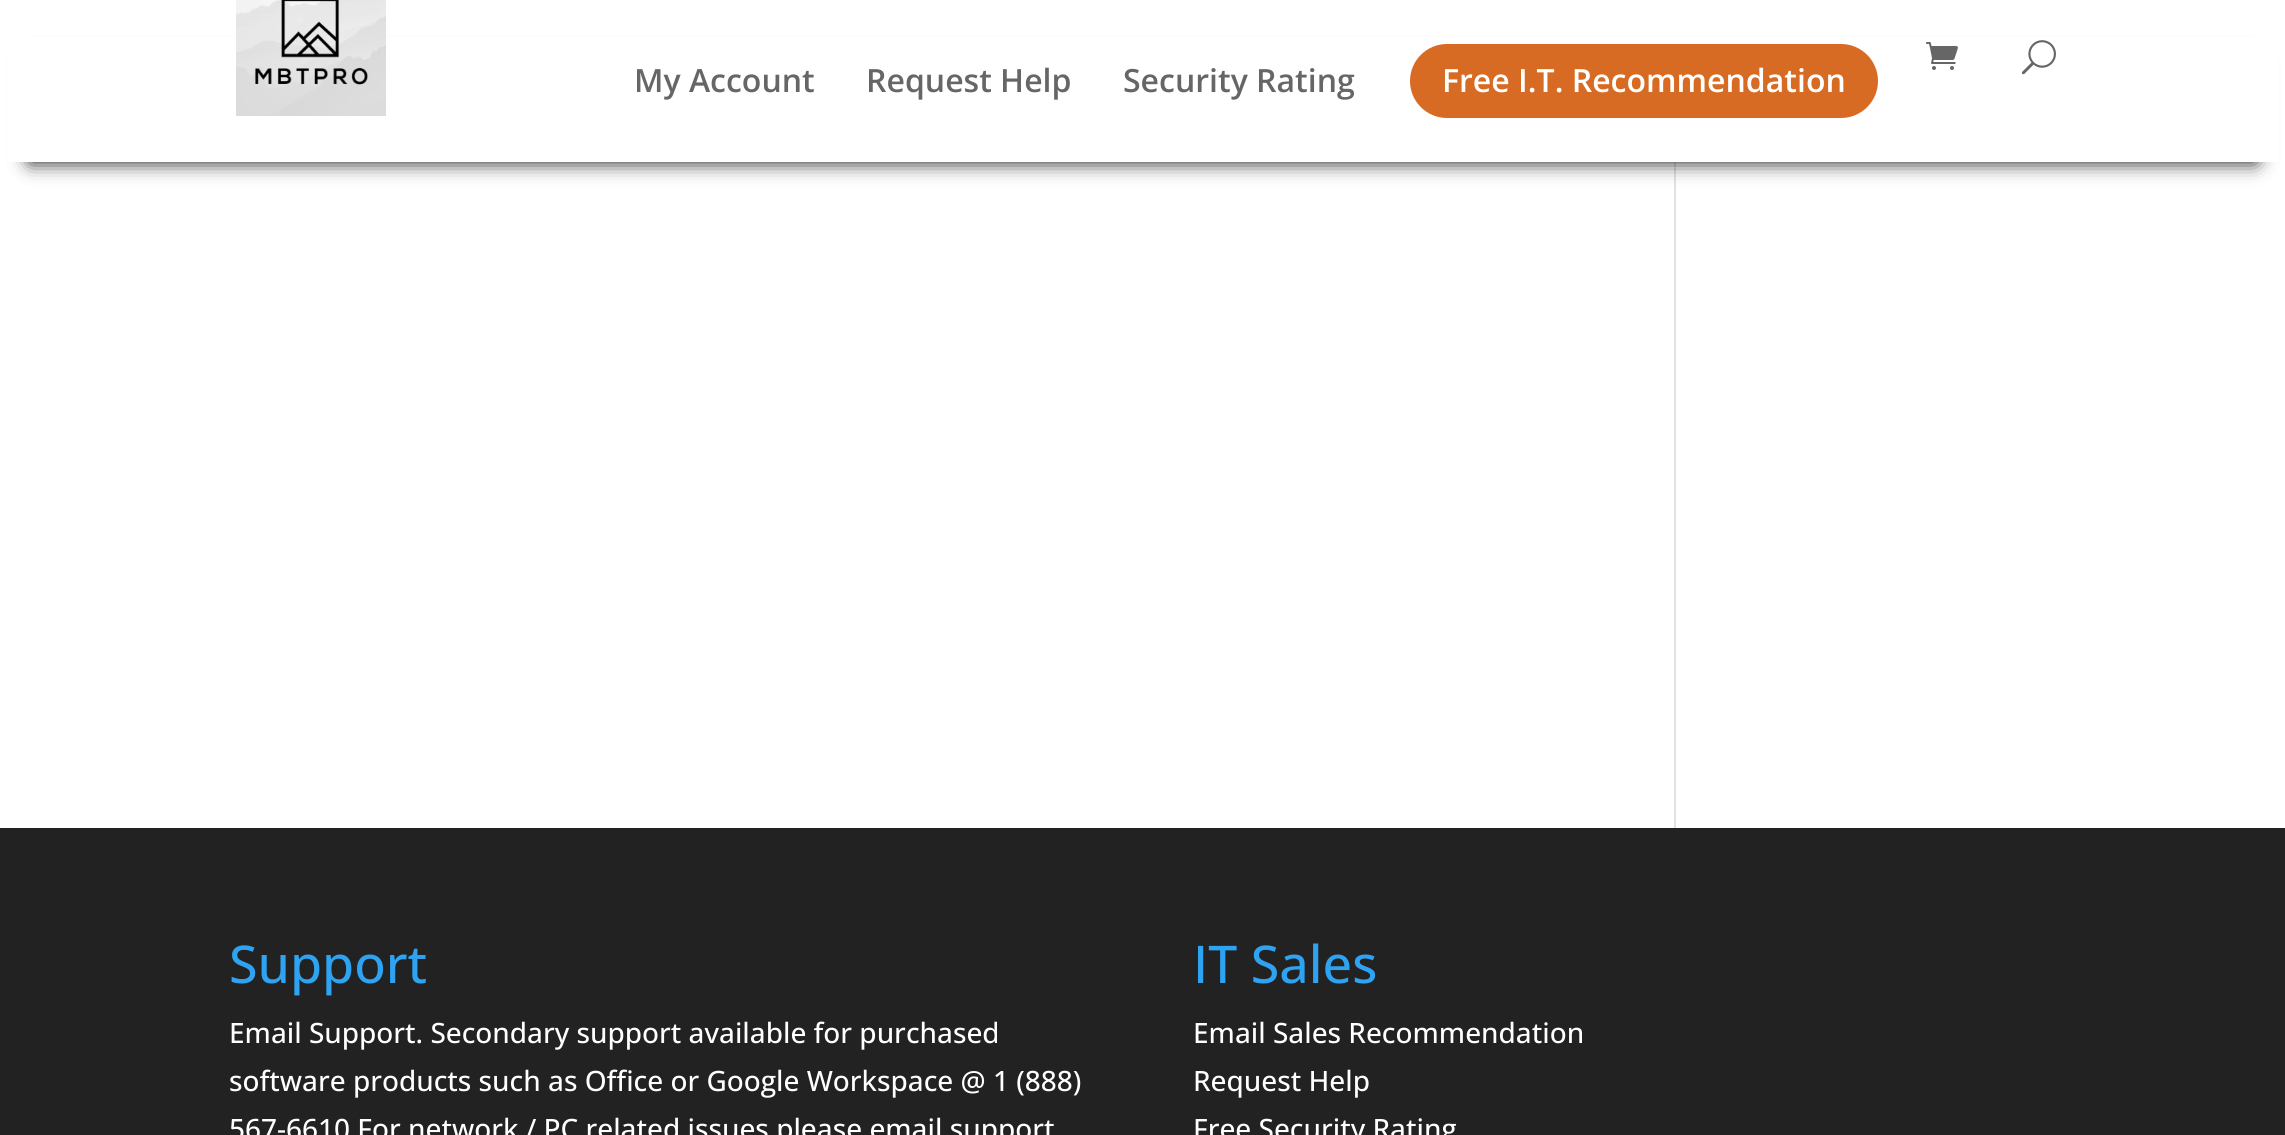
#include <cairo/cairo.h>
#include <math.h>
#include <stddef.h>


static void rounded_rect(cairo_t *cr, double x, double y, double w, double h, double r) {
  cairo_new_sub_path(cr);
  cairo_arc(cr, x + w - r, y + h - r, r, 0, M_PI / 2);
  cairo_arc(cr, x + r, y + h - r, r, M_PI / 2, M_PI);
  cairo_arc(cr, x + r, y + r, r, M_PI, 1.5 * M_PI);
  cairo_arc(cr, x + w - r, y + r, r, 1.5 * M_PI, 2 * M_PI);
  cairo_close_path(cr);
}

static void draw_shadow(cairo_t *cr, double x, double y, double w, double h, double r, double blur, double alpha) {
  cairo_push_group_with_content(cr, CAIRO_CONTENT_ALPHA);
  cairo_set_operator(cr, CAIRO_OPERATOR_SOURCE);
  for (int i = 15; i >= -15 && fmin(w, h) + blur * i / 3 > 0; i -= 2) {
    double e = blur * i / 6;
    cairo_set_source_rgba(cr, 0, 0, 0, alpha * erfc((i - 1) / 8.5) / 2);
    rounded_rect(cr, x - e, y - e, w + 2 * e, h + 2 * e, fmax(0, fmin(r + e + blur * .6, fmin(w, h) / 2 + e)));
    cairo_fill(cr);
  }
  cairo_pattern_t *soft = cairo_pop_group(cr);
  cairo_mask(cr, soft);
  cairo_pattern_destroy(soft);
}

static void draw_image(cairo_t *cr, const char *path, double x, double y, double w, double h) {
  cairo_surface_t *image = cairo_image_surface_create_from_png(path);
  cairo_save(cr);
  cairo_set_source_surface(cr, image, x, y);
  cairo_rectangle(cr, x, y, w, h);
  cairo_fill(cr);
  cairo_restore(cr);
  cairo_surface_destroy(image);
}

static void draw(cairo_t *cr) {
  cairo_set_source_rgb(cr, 1, 1, 1);
  cairo_paint(cr);
  cairo_set_source_rgb(cr, 226 / 255.0, 226 / 255.0, 226 / 255.0);
  cairo_rectangle(cr, 1674, 162, 2, 666);
  cairo_fill(cr);
  cairo_set_source_rgb(cr, 17 / 255.0, 17 / 255.0, 17 / 255.0);
  draw_shadow(cr, 30, 60, 2226, 102, 0, 10, 1);
  cairo_set_source_rgb(cr, 1, 1, 1);
  cairo_rectangle(cr, 7, 37, 2272, 125);
  cairo_fill(cr);
  draw_image(cr, "images/1.png", 236, 0, 150, 116);
  draw_image(cr, "images/2.png", 1926, 42, 32, 28);
  draw_image(cr, "images/3.png", 2021, 40, 35, 35);
  cairo_set_source_rgb(cr, 215 / 255.0, 107 / 255.0, 35 / 255.0);
  rounded_rect(cr, 1408, 42, 472, 78, 39);
  cairo_fill_preserve(cr);
  cairo_set_source_rgb(cr, 1, 1, 1);
  cairo_set_line_width(cr, 4);
  cairo_stroke(cr);
  cairo_set_source_rgb(cr, 34 / 255.0, 34 / 255.0, 34 / 255.0);
  cairo_rectangle(cr, 0, 828, 2285, 307);
  cairo_fill(cr);
  cairo_select_font_face(cr, "Open Sans SemiBold", CAIRO_FONT_SLANT_NORMAL, CAIRO_FONT_WEIGHT_NORMAL);
  cairo_set_font_size(cr, 32);
  cairo_set_source_rgb(cr, 102 / 255.0, 102 / 255.0, 102 / 255.0);
  cairo_move_to(cr, 634, 92);
  cairo_show_text(cr, "My Account");
  cairo_move_to(cr, 866, 92);
  cairo_show_text(cr, "Request Help");
  cairo_move_to(cr, 1123, 92);
  cairo_show_text(cr, "Security Rating");
  cairo_set_source_rgb(cr, 1, 1, 1);
  cairo_move_to(cr, 1442, 92);
  cairo_show_text(cr, "Free I.T. Recommendation");
  cairo_select_font_face(cr, "Open Sans Medium", CAIRO_FONT_SLANT_NORMAL, CAIRO_FONT_WEIGHT_NORMAL);
  cairo_set_font_size(cr, 52);
  cairo_set_source_rgb(cr, 46 / 255.0, 163 / 255.0, 242 / 255.0);
  cairo_move_to(cr, 229, 983);
  cairo_show_text(cr, "Support");
  cairo_set_font_size(cr, 28);
  cairo_set_source_rgb(cr, 1, 1, 1);
  cairo_move_to(cr, 229, 1043);
  cairo_show_text(cr, "Email Support. Secondary support available for purchased");
  cairo_move_to(cr, 229, 1091);
  cairo_show_text(cr, "software products such as Office or Google Workspace @ 1 (888)");
  cairo_move_to(cr, 229, 1139);
  cairo_show_text(cr, "567-6610 For network / PC related issues please email support");
  cairo_set_font_size(cr, 52);
  cairo_set_source_rgb(cr, 46 / 255.0, 163 / 255.0, 242 / 255.0);
  cairo_move_to(cr, 1193, 983);
  cairo_show_text(cr, "IT Sales");
  cairo_set_font_size(cr, 28);
  cairo_set_source_rgb(cr, 1, 1, 1);
  cairo_move_to(cr, 1193, 1043);
  cairo_show_text(cr, "Email Sales Recommendation");
  cairo_move_to(cr, 1193, 1091);
  cairo_show_text(cr, "Request Help");
  cairo_move_to(cr, 1193, 1139);
  cairo_show_text(cr, "Free Security Rating");
}

int main(void) {
  cairo_surface_t *surface = cairo_image_surface_create(CAIRO_FORMAT_RGB24, 2285, 1135);
  cairo_t *cr = cairo_create(surface);
  cairo_font_options_t *options = cairo_font_options_create();
  cairo_font_options_set_hint_metrics(options, CAIRO_HINT_METRICS_OFF);
  cairo_font_options_set_hint_style(options, CAIRO_HINT_STYLE_NONE);
  cairo_set_font_options(cr, options);
  cairo_set_miter_limit(cr, 4);
  draw(cr);
  cairo_surface_write_to_png(surface, "out.png");
  cairo_font_options_destroy(options);
  cairo_destroy(cr);
  cairo_surface_destroy(surface);
  return 0;
}
